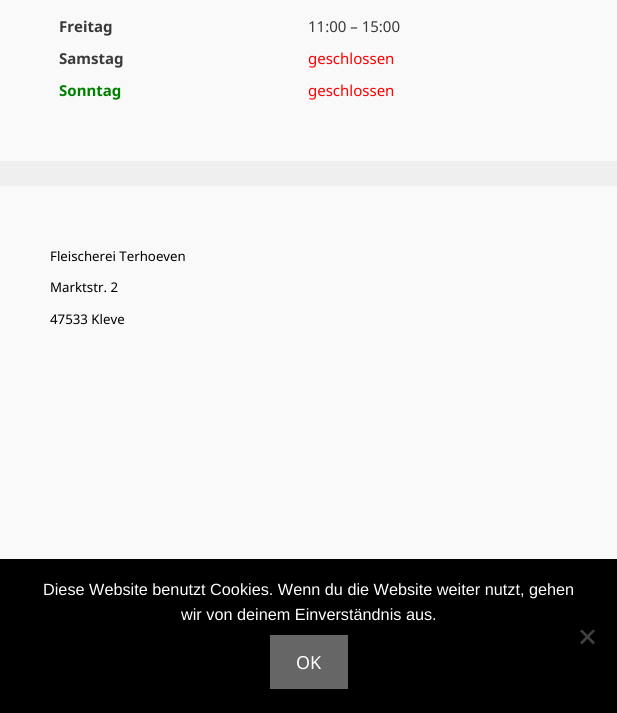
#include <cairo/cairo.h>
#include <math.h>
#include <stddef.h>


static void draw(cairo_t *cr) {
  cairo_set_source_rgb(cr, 239 / 255.0, 239 / 255.0, 239 / 255.0);
  cairo_paint(cr);
  cairo_set_source_rgb(cr, 249 / 255.0, 249 / 255.0, 249 / 255.0);
  cairo_rectangle(cr, 0, 0, 617, 161);
  cairo_fill(cr);
  cairo_rectangle(cr, 0, 186, 617, 373);
  cairo_fill(cr);
  cairo_set_source_rgb(cr, 0, 0, 0);
  cairo_rectangle(cr, 0, 559, 617, 154);
  cairo_fill(cr);
  cairo_set_source_rgb(cr, 64 / 255.0, 64 / 255.0, 64 / 255.0);
  cairo_new_path(cr);
  cairo_move_to(cr, 593, 629.5);
  cairo_line_to(cr, 595, 631);
  cairo_line_to(cr, 582, 644.5);
  cairo_line_to(cr, 580, 642.5);
  cairo_close_path(cr);
  cairo_fill(cr);
  cairo_new_path(cr);
  cairo_move_to(cr, 580, 631);
  cairo_line_to(cr, 582, 629.5);
  cairo_line_to(cr, 595, 642.5);
  cairo_line_to(cr, 593, 644.5);
  cairo_close_path(cr);
  cairo_fill(cr);
  cairo_set_source_rgb(cr, 102 / 255.0, 102 / 255.0, 102 / 255.0);
  cairo_rectangle(cr, 270, 635, 78, 54);
  cairo_fill(cr);
  cairo_select_font_face(cr, "Noto Sans", CAIRO_FONT_SLANT_NORMAL, CAIRO_FONT_WEIGHT_BOLD);
  cairo_set_font_size(cr, 15);
  cairo_set_source_rgb(cr, 58 / 255.0, 58 / 255.0, 58 / 255.0);
  cairo_move_to(cr, 59, 32);
  cairo_show_text(cr, "Freitag");
  cairo_select_font_face(cr, "Noto Sans", CAIRO_FONT_SLANT_NORMAL, CAIRO_FONT_WEIGHT_NORMAL);
  cairo_move_to(cr, 308, 32);
  cairo_show_text(cr, "11:00 – 15:00");
  cairo_select_font_face(cr, "Noto Sans", CAIRO_FONT_SLANT_NORMAL, CAIRO_FONT_WEIGHT_BOLD);
  cairo_move_to(cr, 59, 64);
  cairo_show_text(cr, "Samstag");
  cairo_select_font_face(cr, "Noto Sans", CAIRO_FONT_SLANT_NORMAL, CAIRO_FONT_WEIGHT_NORMAL);
  cairo_set_source_rgb(cr, 1, 0, 0);
  cairo_move_to(cr, 308, 64);
  cairo_show_text(cr, "geschlossen");
  cairo_select_font_face(cr, "Noto Sans", CAIRO_FONT_SLANT_NORMAL, CAIRO_FONT_WEIGHT_BOLD);
  cairo_set_source_rgb(cr, 0, 128 / 255.0, 0);
  cairo_move_to(cr, 59, 96);
  cairo_show_text(cr, "Sonntag");
  cairo_select_font_face(cr, "Noto Sans", CAIRO_FONT_SLANT_NORMAL, CAIRO_FONT_WEIGHT_NORMAL);
  cairo_set_source_rgb(cr, 1, 0, 0);
  cairo_move_to(cr, 308, 96);
  cairo_show_text(cr, "geschlossen");
  cairo_set_font_size(cr, 13.25);
  cairo_set_source_rgb(cr, 0, 0, 0);
  cairo_move_to(cr, 50, 261);
  cairo_show_text(cr, "Fleischerei Terhoeven");
  cairo_move_to(cr, 50, 292);
  cairo_show_text(cr, "Marktstr. 2");
  cairo_move_to(cr, 50, 324);
  cairo_show_text(cr, "47533 Kleve");
  cairo_select_font_face(cr, "Liberation Sans", CAIRO_FONT_SLANT_NORMAL, CAIRO_FONT_WEIGHT_NORMAL);
  cairo_set_font_size(cr, 16.25);
  cairo_set_source_rgb(cr, 1, 1, 1);
  cairo_move_to(cr, 43, 595);
  cairo_show_text(cr, "Diese Website benutzt Cookies. Wenn du die Website weiter nutzt, gehen");
  cairo_move_to(cr, 181, 620);
  cairo_show_text(cr, "wir von deinem Einverständnis aus.");
  cairo_select_font_face(cr, "Noto Sans", CAIRO_FONT_SLANT_NORMAL, CAIRO_FONT_WEIGHT_NORMAL);
  cairo_set_font_size(cr, 18);
  cairo_move_to(cr, 296, 669);
  cairo_show_text(cr, "OK");
}

int main(void) {
  cairo_surface_t *surface = cairo_image_surface_create(CAIRO_FORMAT_RGB24, 617, 713);
  cairo_t *cr = cairo_create(surface);
  cairo_font_options_t *options = cairo_font_options_create();
  cairo_font_options_set_hint_metrics(options, CAIRO_HINT_METRICS_OFF);
  cairo_font_options_set_hint_style(options, CAIRO_HINT_STYLE_NONE);
  cairo_set_font_options(cr, options);
  cairo_set_miter_limit(cr, 4);
  draw(cr);
  cairo_surface_write_to_png(surface, "out.png");
  cairo_font_options_destroy(options);
  cairo_destroy(cr);
  cairo_surface_destroy(surface);
  return 0;
}
